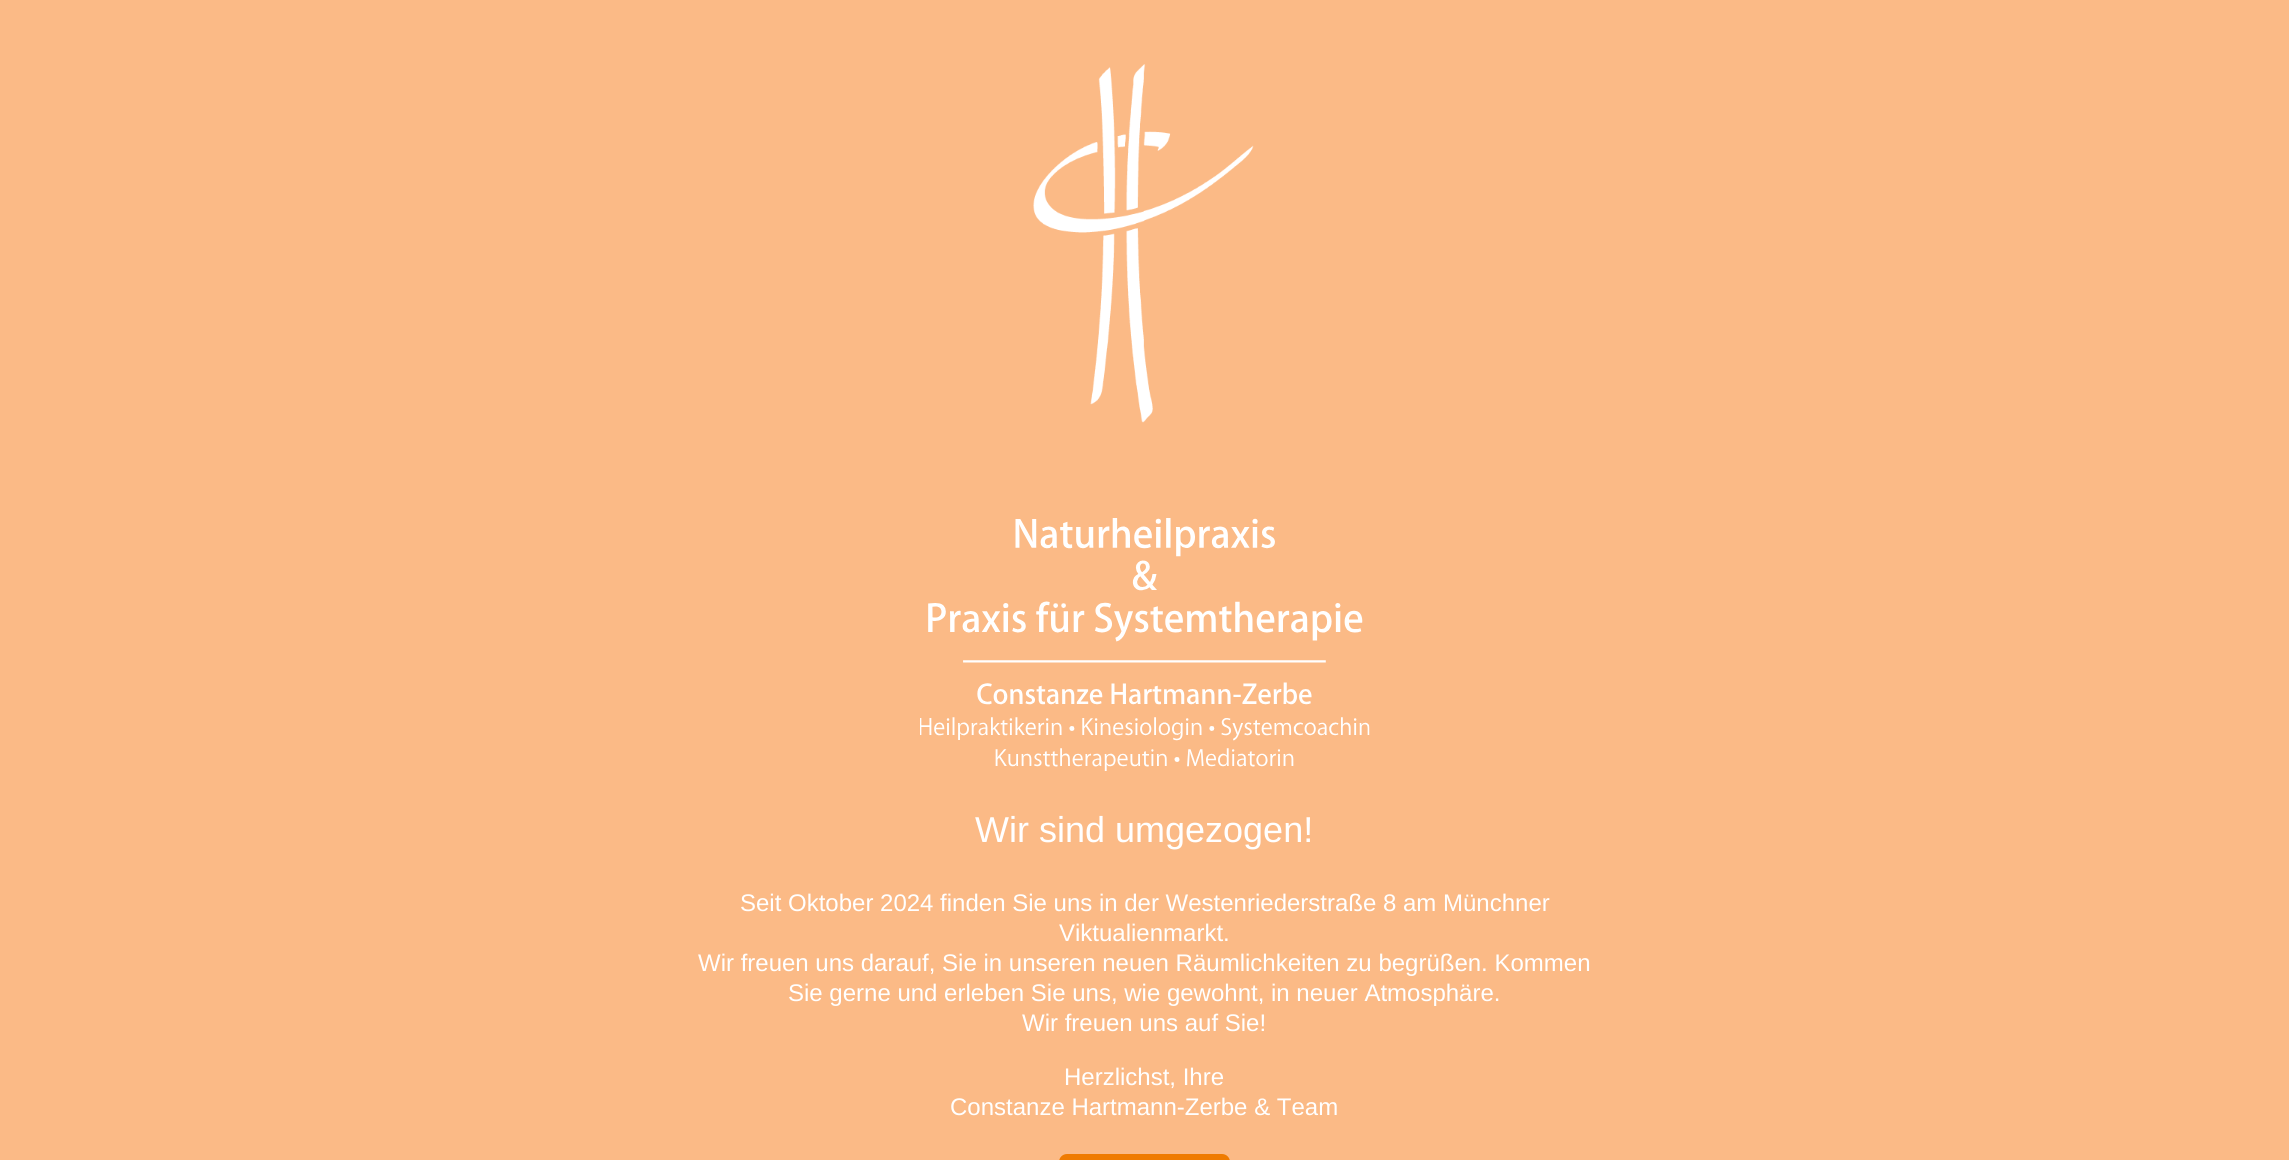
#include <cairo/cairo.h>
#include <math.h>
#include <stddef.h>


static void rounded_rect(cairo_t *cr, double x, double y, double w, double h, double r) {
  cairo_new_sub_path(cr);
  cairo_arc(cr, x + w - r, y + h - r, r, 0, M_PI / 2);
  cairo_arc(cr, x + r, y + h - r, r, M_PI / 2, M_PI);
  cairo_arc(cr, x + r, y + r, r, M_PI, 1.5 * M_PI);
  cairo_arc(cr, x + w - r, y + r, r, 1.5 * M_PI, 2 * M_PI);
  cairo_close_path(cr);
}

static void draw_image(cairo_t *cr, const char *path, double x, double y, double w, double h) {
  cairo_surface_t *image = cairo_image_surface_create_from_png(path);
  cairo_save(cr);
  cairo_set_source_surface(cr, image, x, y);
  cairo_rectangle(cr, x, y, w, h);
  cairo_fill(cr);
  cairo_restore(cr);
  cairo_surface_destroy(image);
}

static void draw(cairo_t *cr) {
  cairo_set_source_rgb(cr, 251 / 255.0, 186 / 255.0, 134 / 255.0);
  cairo_paint(cr);
  draw_image(cr, "images/1.png", 1033, 64, 221, 359);
  draw_image(cr, "images/2.png", 920, 518, 450, 253);
  cairo_set_source_rgb(cr, 239 / 255.0, 123 / 255.0, 0);
  rounded_rect(cr, 1059, 1154, 171, 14, 8);
  cairo_fill(cr);
  cairo_select_font_face(cr, "Liberation Sans", CAIRO_FONT_SLANT_NORMAL, CAIRO_FONT_WEIGHT_NORMAL);
  cairo_set_font_size(cr, 36);
  cairo_set_source_rgb(cr, 1, 1, 1);
  cairo_move_to(cr, 975, 842);
  cairo_show_text(cr, "Wir sind umgezogen!");
  cairo_set_font_size(cr, 24);
  cairo_move_to(cr, 740, 911);
  cairo_show_text(cr, "Seit Oktober 2024 finden Sie uns in der Westenriederstraße 8 am Münchner");
  cairo_move_to(cr, 1059, 941);
  cairo_show_text(cr, "Viktualienmarkt.");
  cairo_move_to(cr, 698, 971);
  cairo_show_text(cr, "Wir freuen uns darauf, Sie in unseren neuen Räumlichkeiten zu begrüßen. Kommen");
  cairo_move_to(cr, 788, 1001);
  cairo_show_text(cr, "Sie gerne und erleben Sie uns, wie gewohnt, in neuer Atmosphäre.");
  cairo_move_to(cr, 1022, 1031);
  cairo_show_text(cr, "Wir freuen uns auf Sie!");
  cairo_move_to(cr, 1064, 1085);
  cairo_show_text(cr, "Herzlichst, Ihre");
  cairo_move_to(cr, 950, 1115);
  cairo_show_text(cr, "Constanze Hartmann-Zerbe & Team");
}

int main(void) {
  cairo_surface_t *surface = cairo_image_surface_create(CAIRO_FORMAT_RGB24, 2289, 1160);
  cairo_t *cr = cairo_create(surface);
  cairo_font_options_t *options = cairo_font_options_create();
  cairo_font_options_set_hint_metrics(options, CAIRO_HINT_METRICS_OFF);
  cairo_font_options_set_hint_style(options, CAIRO_HINT_STYLE_NONE);
  cairo_set_font_options(cr, options);
  cairo_set_miter_limit(cr, 4);
  draw(cr);
  cairo_surface_write_to_png(surface, "out.png");
  cairo_font_options_destroy(options);
  cairo_destroy(cr);
  cairo_surface_destroy(surface);
  return 0;
}
